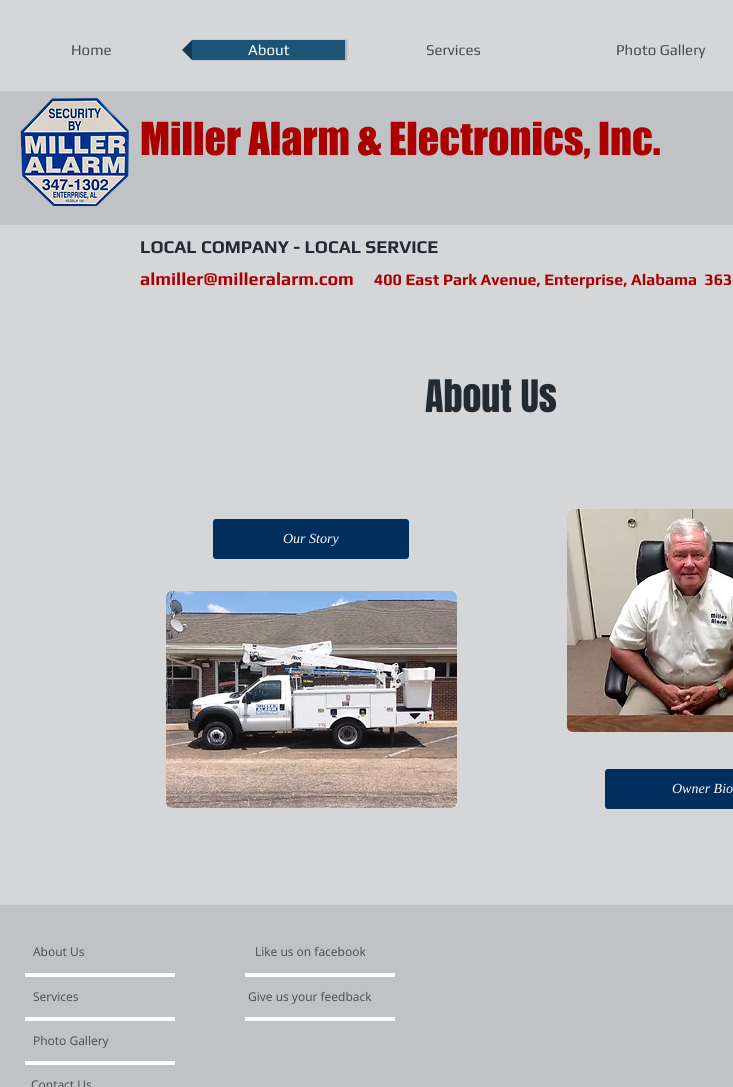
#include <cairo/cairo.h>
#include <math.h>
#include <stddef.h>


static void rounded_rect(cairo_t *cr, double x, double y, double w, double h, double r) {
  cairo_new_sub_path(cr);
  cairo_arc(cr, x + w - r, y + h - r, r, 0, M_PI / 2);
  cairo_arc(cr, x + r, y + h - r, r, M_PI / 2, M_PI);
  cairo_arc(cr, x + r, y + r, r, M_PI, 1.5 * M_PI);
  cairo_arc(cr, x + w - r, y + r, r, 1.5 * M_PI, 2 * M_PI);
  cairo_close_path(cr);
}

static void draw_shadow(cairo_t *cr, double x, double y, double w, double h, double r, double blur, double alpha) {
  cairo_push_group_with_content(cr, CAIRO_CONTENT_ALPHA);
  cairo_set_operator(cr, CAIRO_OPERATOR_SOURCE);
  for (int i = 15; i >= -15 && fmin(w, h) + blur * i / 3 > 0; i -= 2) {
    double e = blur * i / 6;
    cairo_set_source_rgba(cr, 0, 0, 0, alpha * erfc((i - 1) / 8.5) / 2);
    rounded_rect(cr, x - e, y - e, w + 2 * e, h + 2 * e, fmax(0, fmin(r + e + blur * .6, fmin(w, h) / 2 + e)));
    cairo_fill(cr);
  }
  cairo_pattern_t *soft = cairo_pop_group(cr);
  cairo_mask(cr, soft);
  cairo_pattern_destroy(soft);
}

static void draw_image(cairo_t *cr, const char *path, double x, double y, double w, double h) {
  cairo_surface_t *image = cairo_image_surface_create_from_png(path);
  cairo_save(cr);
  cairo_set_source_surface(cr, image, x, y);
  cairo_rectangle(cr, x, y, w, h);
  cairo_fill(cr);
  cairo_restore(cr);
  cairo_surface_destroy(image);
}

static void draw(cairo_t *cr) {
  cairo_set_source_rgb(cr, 212 / 255.0, 214 / 255.0, 215 / 255.0);
  cairo_paint(cr);
  cairo_set_source_rgb(cr, 0, 0, 0);
  draw_shadow(cr, 194, 40, 153, 20, 0, 1, 0.2);
  cairo_set_source_rgb(cr, 20 / 255.0, 58 / 255.0, 83 / 255.0);
  cairo_new_path(cr);
  cairo_move_to(cr, 192, 50);
  cairo_line_to(cr, 182, 50);
  cairo_line_to(cr, 192, 40);
  cairo_close_path(cr);
  cairo_move_to(cr, 182, 50);
  cairo_line_to(cr, 192, 50);
  cairo_line_to(cr, 192, 60);
  cairo_close_path(cr);
  cairo_fill(cr);
  cairo_set_source_rgb(cr, 29 / 255.0, 83 / 255.0, 119 / 255.0);
  cairo_rectangle(cr, 192, 40, 153, 20);
  cairo_fill(cr);
  cairo_set_source_rgb(cr, 192 / 255.0, 195 / 255.0, 197 / 255.0);
  cairo_rectangle(cr, 0, 91, 733, 134);
  cairo_fill(cr);
  draw_image(cr, "images/1.png", 20, 98, 109, 108);
  cairo_set_source_rgb(cr, 0, 46 / 255.0, 93 / 255.0);
  rounded_rect(cr, 213, 519, 196, 40, 3);
  cairo_fill(cr);
  cairo_set_source_rgb(cr, 1, 1, 1);
  rounded_rect(cr, 567, 509, 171, 223, 5);
  cairo_fill(cr);
  draw_image(cr, "images/2.png", 567, 509, 166, 223);
  rounded_rect(cr, 166, 591, 291, 217, 5);
  cairo_fill(cr);
  draw_image(cr, "images/3.png", 166, 591, 291, 217);
  cairo_set_source_rgb(cr, 0, 46 / 255.0, 93 / 255.0);
  rounded_rect(cr, 605, 769, 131, 40, 3);
  cairo_fill(cr);
  cairo_set_source_rgb(cr, 192 / 255.0, 195 / 255.0, 197 / 255.0);
  cairo_rectangle(cr, 0, 905, 733, 182);
  cairo_fill(cr);
  cairo_set_source_rgb(cr, 1, 1, 1);
  cairo_rectangle(cr, 25, 973, 150, 4);
  cairo_fill(cr);
  cairo_rectangle(cr, 245, 973, 150, 4);
  cairo_fill(cr);
  cairo_rectangle(cr, 25, 1017, 150, 4);
  cairo_fill(cr);
  cairo_rectangle(cr, 245, 1017, 150, 4);
  cairo_fill(cr);
  cairo_rectangle(cr, 25, 1061, 150, 4);
  cairo_fill(cr);
  cairo_select_font_face(cr, "Play", CAIRO_FONT_SLANT_NORMAL, CAIRO_FONT_WEIGHT_NORMAL);
  cairo_set_font_size(cr, 15);
  cairo_set_source_rgb(cr, 70 / 255.0, 75 / 255.0, 78 / 255.0);
  cairo_move_to(cr, 71, 55);
  cairo_show_text(cr, "Home");
  cairo_set_source_rgb(cr, 1, 1, 1);
  cairo_move_to(cr, 248, 55);
  cairo_show_text(cr, "About");
  cairo_set_source_rgb(cr, 70 / 255.0, 75 / 255.0, 78 / 255.0);
  cairo_move_to(cr, 426, 55);
  cairo_show_text(cr, "Services");
  cairo_move_to(cr, 616, 55);
  cairo_show_text(cr, "Photo Gallery");
  cairo_select_font_face(cr, "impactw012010", CAIRO_FONT_SLANT_NORMAL, CAIRO_FONT_WEIGHT_NORMAL);
  cairo_set_font_size(cr, 42);
  cairo_set_source_rgb(cr, 170 / 255.0, 0, 0);
  cairo_move_to(cr, 140, 155);
  cairo_show_text(cr, "Miller Alarm & Electronics, Inc.");
  cairo_select_font_face(cr, "Play", CAIRO_FONT_SLANT_NORMAL, CAIRO_FONT_WEIGHT_BOLD);
  cairo_set_font_size(cr, 18);
  cairo_set_source_rgb(cr, 32 / 255.0, 43 / 255.0, 51 / 255.0);
  cairo_move_to(cr, 140, 253);
  cairo_show_text(cr, "LOCAL COMPANY - LOCAL SERVICE");
  cairo_set_source_rgb(cr, 170 / 255.0, 0, 0);
  cairo_move_to(cr, 140, 285);
  cairo_show_text(cr, "almiller@milleralarm.com");
  cairo_set_font_size(cr, 16);
  cairo_move_to(cr, 374, 285);
  cairo_show_text(cr, "400 East Park Avenue, Enterprise, Alabama  363");
  cairo_select_font_face(cr, "Anton", CAIRO_FONT_SLANT_NORMAL, CAIRO_FONT_WEIGHT_NORMAL);
  cairo_set_font_size(cr, 38);
  cairo_set_source_rgb(cr, 32 / 255.0, 43 / 255.0, 51 / 255.0);
  cairo_move_to(cr, 425, 412);
  cairo_show_text(cr, "About Us");
  cairo_select_font_face(cr, "Liberation Serif", CAIRO_FONT_SLANT_ITALIC, CAIRO_FONT_WEIGHT_NORMAL);
  cairo_set_font_size(cr, 14);
  cairo_set_source_rgb(cr, 1, 1, 1);
  cairo_move_to(cr, 283, 543);
  cairo_show_text(cr, "Our Story");
  cairo_move_to(cr, 672, 793);
  cairo_show_text(cr, "Owner Bio");
  cairo_select_font_face(cr, "Open Sans", CAIRO_FONT_SLANT_NORMAL, CAIRO_FONT_WEIGHT_NORMAL);
  cairo_set_font_size(cr, 12);
  cairo_set_source_rgb(cr, 70 / 255.0, 75 / 255.0, 78 / 255.0);
  cairo_move_to(cr, 33, 956);
  cairo_show_text(cr, "About Us");
  cairo_move_to(cr, 255, 956);
  cairo_show_text(cr, "Like us on facebook");
  cairo_move_to(cr, 33, 1001);
  cairo_show_text(cr, "Services");
  cairo_move_to(cr, 248, 1001);
  cairo_show_text(cr, "Give us your feedback");
  cairo_move_to(cr, 33, 1045);
  cairo_show_text(cr, "Photo Gallery");
  cairo_move_to(cr, 31, 1089);
  cairo_show_text(cr, "Contact Us");
}

int main(void) {
  cairo_surface_t *surface = cairo_image_surface_create(CAIRO_FORMAT_RGB24, 733, 1087);
  cairo_t *cr = cairo_create(surface);
  cairo_font_options_t *options = cairo_font_options_create();
  cairo_font_options_set_hint_metrics(options, CAIRO_HINT_METRICS_OFF);
  cairo_font_options_set_hint_style(options, CAIRO_HINT_STYLE_NONE);
  cairo_set_font_options(cr, options);
  cairo_set_miter_limit(cr, 4);
  draw(cr);
  cairo_surface_write_to_png(surface, "out.png");
  cairo_font_options_destroy(options);
  cairo_destroy(cr);
  cairo_surface_destroy(surface);
  return 0;
}
